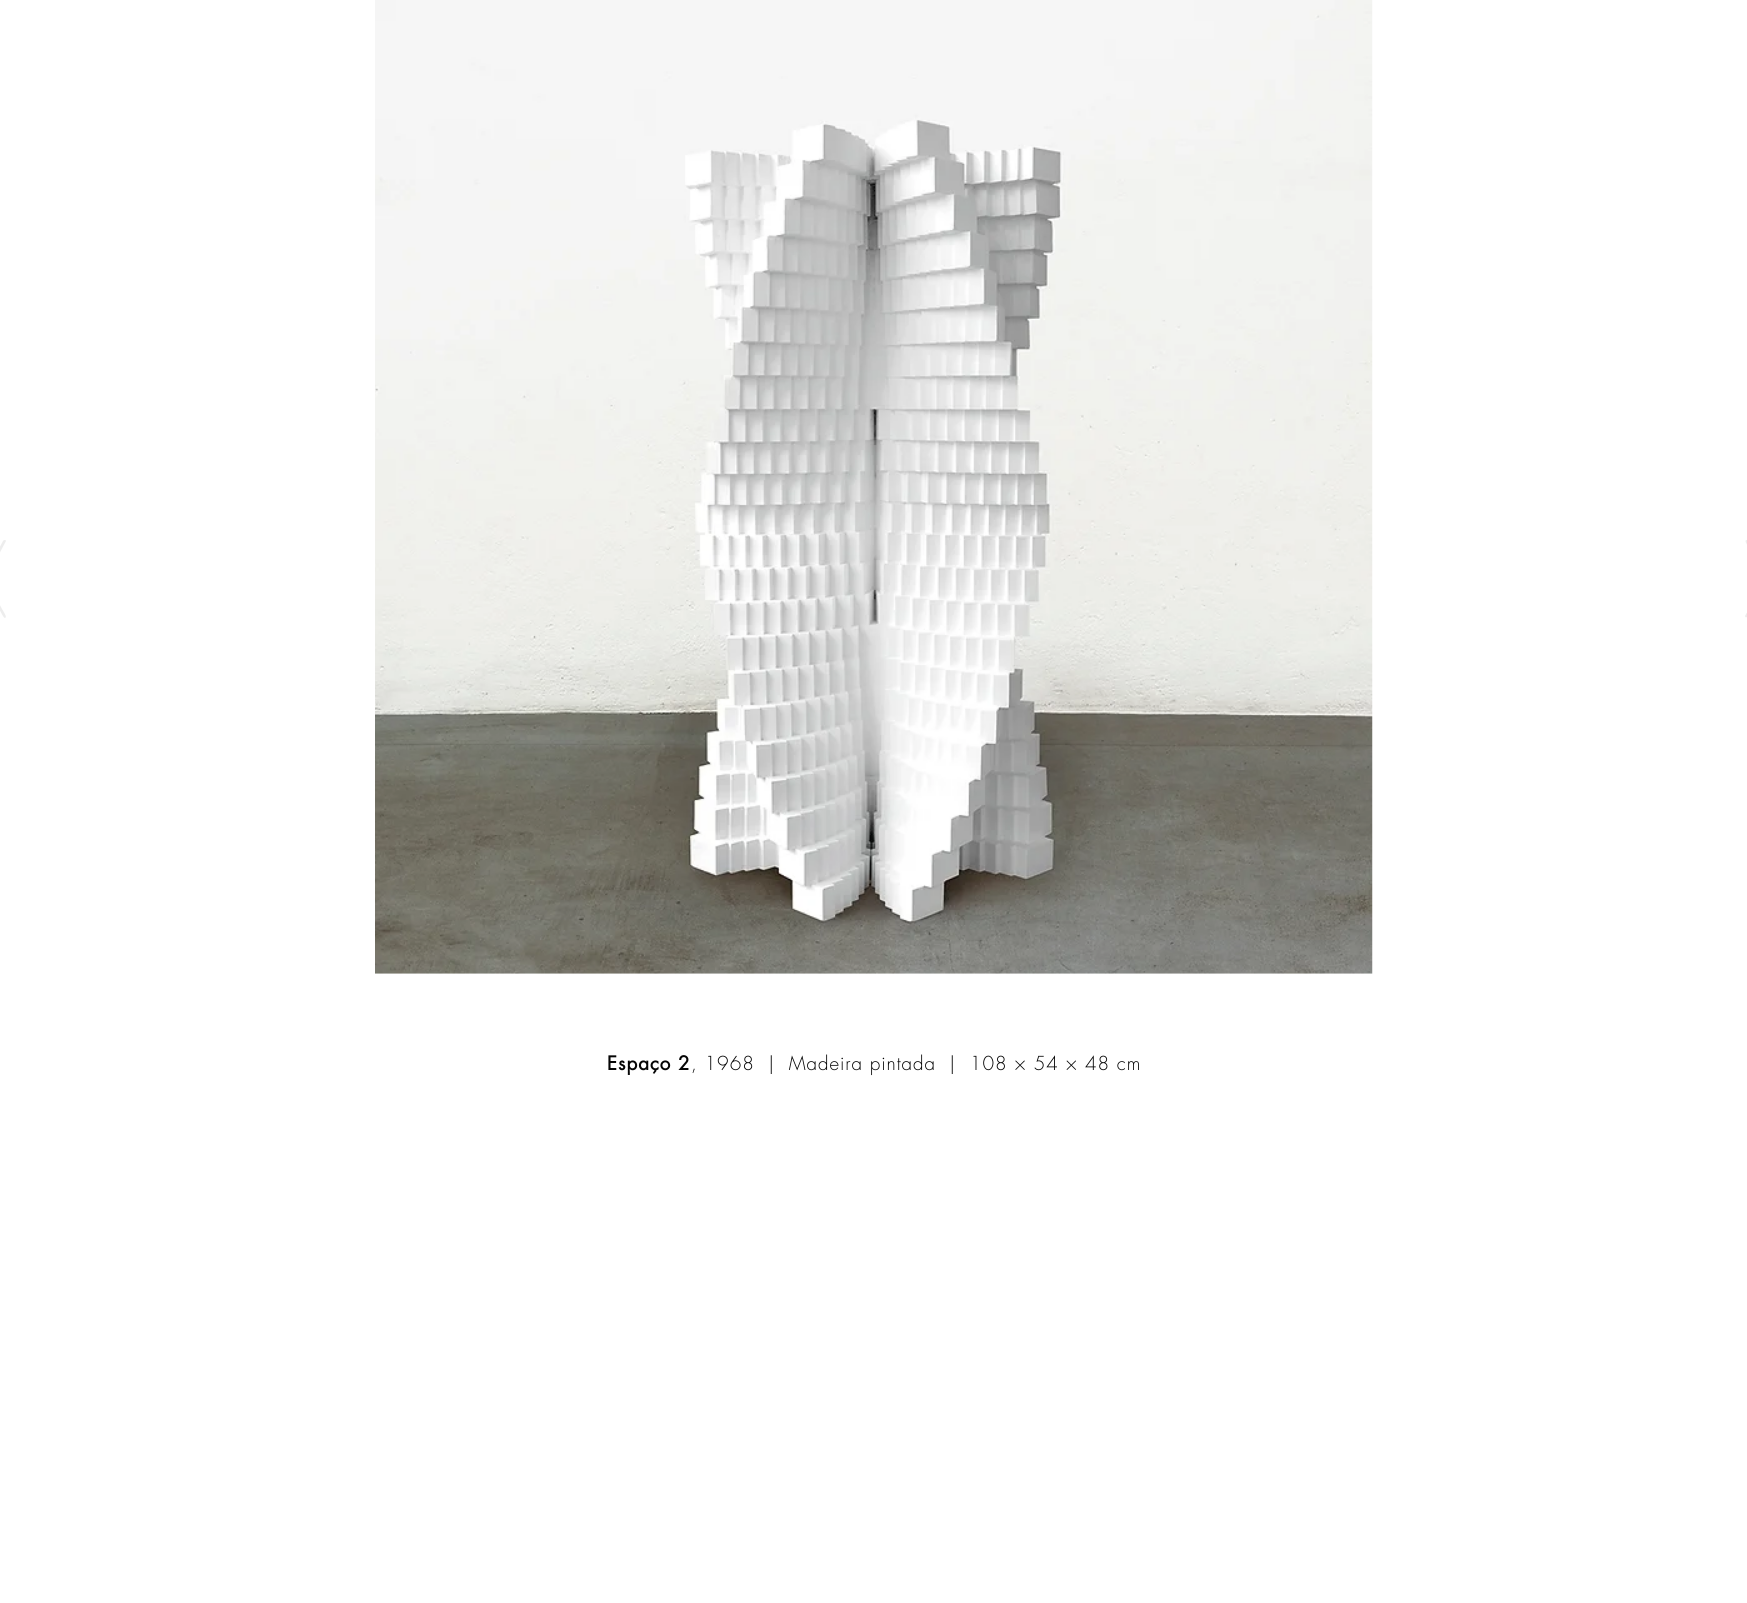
#include <cairo/cairo.h>
#include <math.h>
#include <stddef.h>


static void draw_spaced(cairo_t *cr, double x, double y, const char *s, double letter, double word) {
  cairo_move_to(cr, x, y);
  while (*s) {
    char ch[5] = {0};
    int n = 0;
    do ch[n++] = *s++; while ((*s & 0xC0) == 0x80);
    cairo_show_text(cr, ch);
    cairo_rel_move_to(cr, letter + word * (*ch == ' '), 0);
  }
}

static void draw_image(cairo_t *cr, const char *path, double x, double y, double w, double h) {
  cairo_surface_t *image = cairo_image_surface_create_from_png(path);
  cairo_save(cr);
  cairo_set_source_surface(cr, image, x, y);
  cairo_rectangle(cr, x, y, w, h);
  cairo_fill(cr);
  cairo_restore(cr);
  cairo_surface_destroy(image);
}

static void draw(cairo_t *cr) {
  cairo_set_source_rgb(cr, 1, 1, 1);
  cairo_paint(cr);
  cairo_set_source_rgb(cr, 237 / 255.0, 237 / 255.0, 237 / 255.0);
  cairo_new_path(cr);
  cairo_move_to(cr, 5, 618);
  cairo_curve_to(cr, 3, 618, -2, 606, -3, 604);
  cairo_line_to(cr, -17, 579);
  cairo_line_to(cr, 3, 541);
  cairo_line_to(cr, 4, 540);
  cairo_curve_to(cr, 5, 540, 6, 540, 6, 541);
  cairo_line_to(cr, -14, 579);
  cairo_line_to(cr, 2, 609);
  cairo_curve_to(cr, 5, 614, 7, 617, 5, 618);
  cairo_close_path(cr);
  cairo_fill(cr);
  draw_image(cr, "images/1.png", 375, 0, 998, 974);
  cairo_new_path(cr);
  cairo_move_to(cr, 1747, 540);
  cairo_curve_to(cr, 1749, 540, 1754, 552, 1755, 553);
  cairo_line_to(cr, 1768, 579);
  cairo_line_to(cr, 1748, 617);
  cairo_line_to(cr, 1747, 617);
  cairo_curve_to(cr, 1746, 618, 1745, 617, 1745, 616);
  cairo_line_to(cr, 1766, 579);
  cairo_line_to(cr, 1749, 548);
  cairo_curve_to(cr, 1746, 543, 1744, 540, 1747, 540);
  cairo_close_path(cr);
  cairo_fill(cr);
  cairo_select_font_face(cr, "futura", CAIRO_FONT_SLANT_NORMAL, CAIRO_FONT_WEIGHT_BOLD);
  cairo_set_font_size(cr, 18.75);
  cairo_set_source_rgb(cr, 5 / 255.0, 5 / 255.0, 5 / 255.0);
  draw_spaced(cr, 607, 1070, "Espaço 2", 0.95, 0);
  cairo_select_font_face(cr, "futura Light", CAIRO_FONT_SLANT_NORMAL, CAIRO_FONT_WEIGHT_NORMAL);
  draw_spaced(cr, 691, 1070, ", 1968  |  Madeira pintada  |  108 × 54 × 48 cm", 0.95, 0);
}

int main(void) {
  cairo_surface_t *surface = cairo_image_surface_create(CAIRO_FORMAT_RGB24, 1747, 1603);
  cairo_t *cr = cairo_create(surface);
  cairo_font_options_t *options = cairo_font_options_create();
  cairo_font_options_set_hint_metrics(options, CAIRO_HINT_METRICS_OFF);
  cairo_font_options_set_hint_style(options, CAIRO_HINT_STYLE_NONE);
  cairo_set_font_options(cr, options);
  cairo_set_miter_limit(cr, 4);
  draw(cr);
  cairo_surface_write_to_png(surface, "out.png");
  cairo_font_options_destroy(options);
  cairo_destroy(cr);
  cairo_surface_destroy(surface);
  return 0;
}
